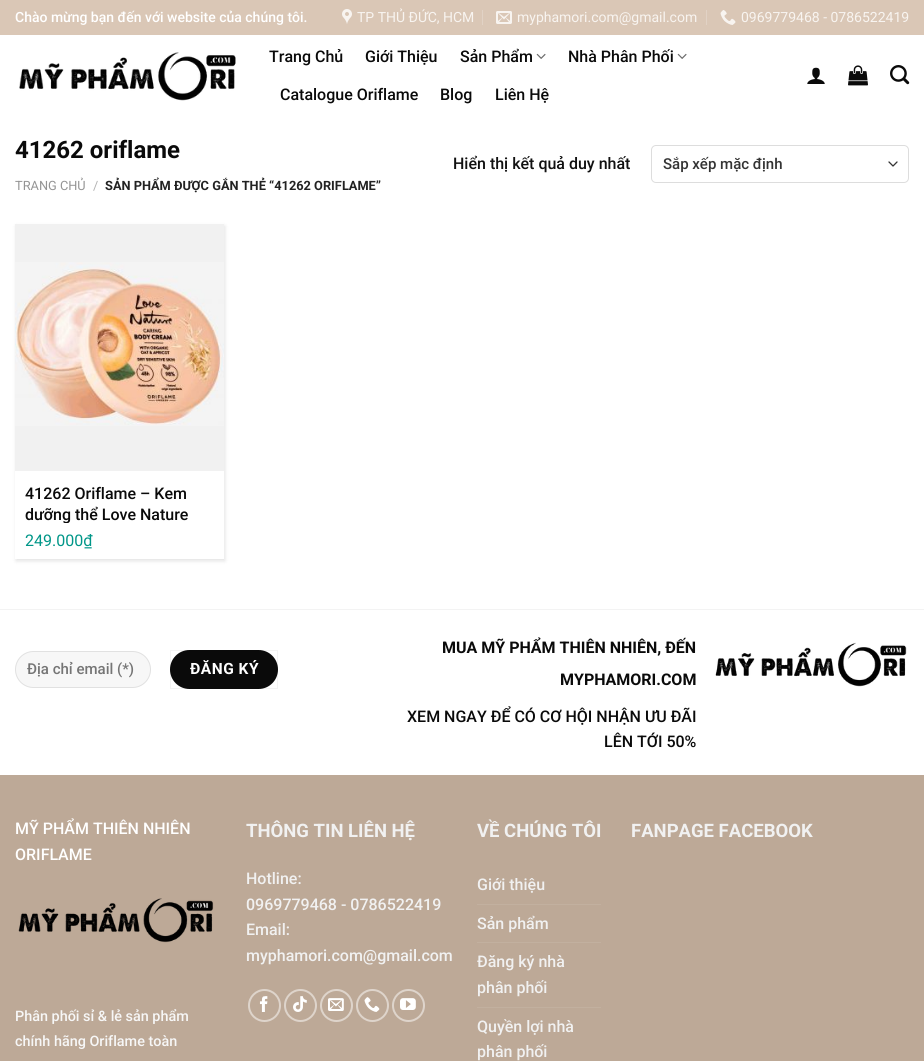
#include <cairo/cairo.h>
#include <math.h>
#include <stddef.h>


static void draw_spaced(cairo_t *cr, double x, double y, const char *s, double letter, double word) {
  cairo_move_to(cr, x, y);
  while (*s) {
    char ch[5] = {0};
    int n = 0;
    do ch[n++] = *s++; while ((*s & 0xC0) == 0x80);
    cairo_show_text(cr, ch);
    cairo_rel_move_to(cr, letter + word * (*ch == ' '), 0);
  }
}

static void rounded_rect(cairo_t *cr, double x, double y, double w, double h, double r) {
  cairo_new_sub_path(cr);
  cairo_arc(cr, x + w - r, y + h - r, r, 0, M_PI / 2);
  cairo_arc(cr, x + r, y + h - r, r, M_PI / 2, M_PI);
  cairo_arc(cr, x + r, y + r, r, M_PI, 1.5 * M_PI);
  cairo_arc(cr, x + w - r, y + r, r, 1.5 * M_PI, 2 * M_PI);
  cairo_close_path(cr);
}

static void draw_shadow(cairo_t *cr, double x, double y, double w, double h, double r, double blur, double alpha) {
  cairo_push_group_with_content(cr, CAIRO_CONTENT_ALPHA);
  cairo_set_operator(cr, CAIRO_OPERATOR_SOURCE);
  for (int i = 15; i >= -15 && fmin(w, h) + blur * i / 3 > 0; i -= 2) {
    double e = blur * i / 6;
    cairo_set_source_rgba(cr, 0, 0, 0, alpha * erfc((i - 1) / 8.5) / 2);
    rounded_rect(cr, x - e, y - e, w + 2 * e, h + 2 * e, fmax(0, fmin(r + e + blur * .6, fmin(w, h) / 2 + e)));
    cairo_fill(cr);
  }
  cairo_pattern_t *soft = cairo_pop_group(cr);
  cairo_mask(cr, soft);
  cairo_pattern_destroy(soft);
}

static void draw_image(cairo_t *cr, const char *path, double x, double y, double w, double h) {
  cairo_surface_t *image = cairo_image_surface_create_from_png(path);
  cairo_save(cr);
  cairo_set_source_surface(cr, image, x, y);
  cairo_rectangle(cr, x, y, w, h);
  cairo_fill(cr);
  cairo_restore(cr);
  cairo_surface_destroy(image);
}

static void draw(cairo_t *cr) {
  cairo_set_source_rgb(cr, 1, 1, 1);
  cairo_paint(cr);
  cairo_set_source_rgb(cr, 218 / 255.0, 199 / 255.0, 182 / 255.0);
  cairo_rectangle(cr, 0, 0, 924, 35);
  cairo_fill(cr);
  draw_image(cr, "images/1.png", 342, 9, 10, 15);
  cairo_set_source_rgb(cr, 225 / 255.0, 210 / 255.0, 197 / 255.0);
  cairo_rectangle(cr, 482, 10, 1, 15);
  cairo_fill(cr);
  draw_image(cr, "images/2.png", 496, 11, 16, 13);
  cairo_rectangle(cr, 706, 10, 1, 15);
  cairo_fill(cr);
  draw_image(cr, "images/3.png", 720, 10, 16, 15);
  draw_image(cr, "images/4.png", 19, 52, 217, 49);
  draw_image(cr, "images/5.png", 536, 53, 10, 6);
  draw_image(cr, "images/5.png", 677, 53, 10, 6);
  draw_image(cr, "images/6.png", 807, 67, 18, 17);
  draw_image(cr, "images/7.png", 848, 65, 20, 21);
  draw_image(cr, "images/8.png", 890, 65, 20, 20);
  cairo_new_path(cr);
  cairo_move_to(cr, 889, 162);
  cairo_line_to(cr, 893, 166);
  cairo_line_to(cr, 897, 162);
  cairo_set_source_rgb(cr, 51 / 255.0, 51 / 255.0, 51 / 255.0);
  cairo_set_line_width(cr, 1.3);
  cairo_set_line_cap(cr, CAIRO_LINE_CAP_ROUND);
  cairo_set_line_join(cr, CAIRO_LINE_JOIN_ROUND);
  cairo_stroke(cr);
  rounded_rect(cr, 651.5, 145.5, 257, 37, 4.5);
  cairo_set_source_rgb(cr, 221 / 255.0, 221 / 255.0, 221 / 255.0);
  cairo_set_line_width(cr, 1);
  cairo_set_line_cap(cr, CAIRO_LINE_CAP_BUTT);
  cairo_set_line_join(cr, CAIRO_LINE_JOIN_MITER);
  cairo_stroke(cr);
  cairo_save(cr);
  cairo_set_fill_rule(cr, CAIRO_FILL_RULE_EVEN_ODD);
  cairo_new_path(cr);
  cairo_move_to(cr, 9, 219);
  cairo_line_to(cr, 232, 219);
  cairo_line_to(cr, 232, 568);
  cairo_line_to(cr, 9, 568);
  cairo_close_path(cr);
  cairo_move_to(cr, 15, 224);
  cairo_line_to(cr, 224, 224);
  cairo_line_to(cr, 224, 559);
  cairo_line_to(cr, 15, 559);
  cairo_close_path(cr);
  cairo_clip(cr);
  cairo_set_source_rgb(cr, 0, 0, 0);
  draw_shadow(cr, 16, 226, 209, 335, 0, 2, 0.11);
  cairo_restore(cr);
  cairo_set_source_rgb(cr, 241 / 255.0, 241 / 255.0, 241 / 255.0);
  cairo_rectangle(cr, 15, 224, 209, 247);
  cairo_fill(cr);
  draw_image(cr, "images/9.png", 15, 262, 209, 164);
  cairo_set_source_rgb(cr, 243 / 255.0, 243 / 255.0, 243 / 255.0);
  cairo_rectangle(cr, 0, 609, 924, 1);
  cairo_fill(cr);
  cairo_set_source_rgb(cr, 247 / 255.0, 247 / 255.0, 247 / 255.0);
  rounded_rect(cr, 15, 651, 136, 37, 18.5);
  cairo_fill(cr);
  rounded_rect(cr, 15.5, 651.5, 135, 36, 18);
  cairo_set_source_rgba(cr, 0, 0, 0, 0.09);
  cairo_stroke(cr);
  cairo_set_source_rgb(cr, 10 / 255.0, 10 / 255.0, 10 / 255.0);
  rounded_rect(cr, 170, 650, 108, 39, 19.5);
  cairo_fill(cr);
  cairo_rectangle(cr, 170.5, 650.5, 107, 38);
  cairo_set_source_rgba(cr, 0, 0, 0, 0.05);
  cairo_stroke(cr);
  draw_image(cr, "images/10.png", 715, 642, 192, 45);
  cairo_set_source_rgb(cr, 189 / 255.0, 169 / 255.0, 151 / 255.0);
  cairo_rectangle(cr, 0, 775, 924, 286);
  cairo_fill(cr);
  draw_image(cr, "images/11.png", 18, 898, 196, 45);
  cairo_arc(cr, 264.5, 1005.5, 15.5, 0, 2 * M_PI);
  cairo_set_source_rgb(cr, 222 / 255.0, 212 / 255.0, 203 / 255.0);
  cairo_set_line_width(cr, 2);
  cairo_stroke(cr);
  draw_image(cr, "images/12.png", 259, 996, 9, 16);
  cairo_arc(cr, 300.5, 1005.5, 15.5, 0, 2 * M_PI);
  cairo_stroke(cr);
  draw_image(cr, "images/13.png", 293, 996, 14, 16);
  cairo_arc(cr, 336.5, 1005.5, 15.5, 0, 2 * M_PI);
  cairo_stroke(cr);
  draw_image(cr, "images/14.png", 328, 998, 16, 13);
  cairo_arc(cr, 372.5, 1005.5, 15.5, 0, 2 * M_PI);
  cairo_stroke(cr);
  draw_image(cr, "images/15.png", 364, 997, 16, 15);
  cairo_arc(cr, 408.5, 1005.5, 15.5, 0, 2 * M_PI);
  cairo_stroke(cr);
  draw_image(cr, "images/16.png", 400, 998, 16, 12);
  cairo_set_source_rgb(cr, 194 / 255.0, 176 / 255.0, 159 / 255.0);
  cairo_rectangle(cr, 477, 904, 124, 1);
  cairo_fill(cr);
  cairo_rectangle(cr, 477, 942, 124, 1);
  cairo_fill(cr);
  cairo_rectangle(cr, 477, 1007, 124, 1);
  cairo_fill(cr);
  cairo_select_font_face(cr, "Roboto Medium", CAIRO_FONT_SLANT_NORMAL, CAIRO_FONT_WEIGHT_NORMAL);
  cairo_set_font_size(cr, 14);
  cairo_set_source_rgb(cr, 1, 1, 1);
  cairo_move_to(cr, 15, 22);
  cairo_show_text(cr, "Chào mừng bạn đến với website của chúng tôi.");
  cairo_select_font_face(cr, "Roboto", CAIRO_FONT_SLANT_NORMAL, CAIRO_FONT_WEIGHT_NORMAL);
  cairo_set_source_rgb(cr, 248 / 255.0, 244 / 255.0, 240 / 255.0);
  cairo_move_to(cr, 357, 22);
  cairo_show_text(cr, "TP THỦ ĐỨC, HCM");
  cairo_move_to(cr, 517, 22);
  cairo_show_text(cr, "myphamori.com@gmail.com");
  cairo_move_to(cr, 741, 22);
  cairo_show_text(cr, "0969779468 - 0786522419");
  cairo_select_font_face(cr, "Roboto Medium", CAIRO_FONT_SLANT_NORMAL, CAIRO_FONT_WEIGHT_NORMAL);
  cairo_set_font_size(cr, 16);
  cairo_set_source_rgb(cr, 10 / 255.0, 10 / 255.0, 10 / 255.0);
  cairo_move_to(cr, 269, 62);
  cairo_show_text(cr, "Trang Chủ");
  cairo_move_to(cr, 365, 62);
  cairo_show_text(cr, "Giới Thiệu");
  cairo_move_to(cr, 460, 62);
  cairo_show_text(cr, "Sản Phẩm");
  cairo_move_to(cr, 568, 62);
  cairo_show_text(cr, "Nhà Phân Phối");
  cairo_move_to(cr, 280, 100);
  cairo_show_text(cr, "Catalogue Oriflame");
  cairo_move_to(cr, 440, 100);
  cairo_show_text(cr, "Blog");
  cairo_move_to(cr, 495, 100);
  cairo_show_text(cr, "Liên Hệ");
  cairo_select_font_face(cr, "Roboto", CAIRO_FONT_SLANT_NORMAL, CAIRO_FONT_WEIGHT_BOLD);
  cairo_set_font_size(cr, 24);
  cairo_move_to(cr, 15, 158);
  cairo_show_text(cr, "41262 oriflame");
  cairo_select_font_face(cr, "Roboto", CAIRO_FONT_SLANT_NORMAL, CAIRO_FONT_WEIGHT_NORMAL);
  cairo_set_font_size(cr, 12.8);
  cairo_set_source_rgb(cr, 148 / 255.0, 148 / 255.0, 148 / 255.0);
  cairo_move_to(cr, 15, 190);
  cairo_show_text(cr, "TRANG CHỦ");
  cairo_set_source_rgb(cr, 178 / 255.0, 178 / 255.0, 178 / 255.0);
  cairo_move_to(cr, 93, 190);
  cairo_show_text(cr, "/");
  cairo_select_font_face(cr, "Roboto", CAIRO_FONT_SLANT_NORMAL, CAIRO_FONT_WEIGHT_BOLD);
  cairo_set_source_rgb(cr, 34 / 255.0, 34 / 255.0, 34 / 255.0);
  cairo_move_to(cr, 105, 190);
  cairo_show_text(cr, "SẢN PHẨM ĐƯỢC GẮN THẺ “41262 ORIFLAME”");
  cairo_select_font_face(cr, "Roboto Medium", CAIRO_FONT_SLANT_NORMAL, CAIRO_FONT_WEIGHT_NORMAL);
  cairo_set_font_size(cr, 16);
  cairo_set_source_rgb(cr, 17 / 255.0, 17 / 255.0, 17 / 255.0);
  cairo_move_to(cr, 453, 169);
  cairo_show_text(cr, "Hiển thị kết quả duy nhất");
  cairo_set_font_size(cr, 15);
  cairo_set_source_rgb(cr, 51 / 255.0, 51 / 255.0, 51 / 255.0);
  cairo_move_to(cr, 663, 169);
  cairo_show_text(cr, "Sắp xếp mặc định");
  cairo_set_font_size(cr, 16);
  cairo_set_source_rgb(cr, 10 / 255.0, 10 / 255.0, 10 / 255.0);
  cairo_move_to(cr, 25, 499);
  cairo_show_text(cr, "41262 Oriflame – Kem");
  cairo_save(cr);
  cairo_rectangle(cr, 25, 482, 189, 41);
  cairo_clip(cr);
  cairo_move_to(cr, 25, 520);
  cairo_show_text(cr, "dưỡng thể Love Nature");
  cairo_restore(cr);
  cairo_select_font_face(cr, "Roboto", CAIRO_FONT_SLANT_NORMAL, CAIRO_FONT_WEIGHT_NORMAL);
  cairo_set_source_rgb(cr, 0, 150 / 255.0, 136 / 255.0);
  cairo_move_to(cr, 25, 546);
  cairo_show_text(cr, "249.000₫");
  cairo_select_font_face(cr, "Roboto Medium", CAIRO_FONT_SLANT_NORMAL, CAIRO_FONT_WEIGHT_NORMAL);
  cairo_set_font_size(cr, 15);
  cairo_set_source_rgb(cr, 117 / 255.0, 117 / 255.0, 117 / 255.0);
  cairo_move_to(cr, 27, 674);
  cairo_show_text(cr, "Địa chỉ email (*)");
  cairo_select_font_face(cr, "Roboto", CAIRO_FONT_SLANT_NORMAL, CAIRO_FONT_WEIGHT_BOLD);
  cairo_set_font_size(cr, 15.5);
  cairo_set_source_rgb(cr, 1, 1, 1);
  draw_spaced(cr, 190, 674, "ĐĂNG KÝ", 0.5, 0);
  cairo_set_font_size(cr, 16);
  cairo_set_source_rgb(cr, 10 / 255.0, 10 / 255.0, 10 / 255.0);
  cairo_move_to(cr, 442, 653);
  cairo_show_text(cr, "MUA MỸ PHẨM THIÊN NHIÊN, ĐẾN");
  cairo_move_to(cr, 560, 685);
  cairo_show_text(cr, "MYPHAMORI.COM");
  cairo_select_font_face(cr, "Roboto Medium", CAIRO_FONT_SLANT_NORMAL, CAIRO_FONT_WEIGHT_NORMAL);
  cairo_move_to(cr, 407, 722);
  cairo_show_text(cr, "XEM NGAY ĐỂ CÓ CƠ HỘI NHẬN ƯU ĐÃI");
  cairo_move_to(cr, 604, 747);
  cairo_show_text(cr, "LÊN TỚI 50%");
  cairo_set_source_rgb(cr, 1, 1, 1);
  cairo_move_to(cr, 15, 834);
  cairo_show_text(cr, "MỸ PHẨM THIÊN NHIÊN");
  cairo_move_to(cr, 15, 860);
  cairo_show_text(cr, "ORIFLAME");
  cairo_set_font_size(cr, 14.4);
  cairo_set_source_rgb(cr, 247 / 255.0, 247 / 255.0, 247 / 255.0);
  cairo_move_to(cr, 15, 1021);
  cairo_show_text(cr, "Phân phối sỉ & lẻ sản phẩm");
  cairo_move_to(cr, 15, 1046);
  cairo_show_text(cr, "chính hãng Oriflame toàn");
  cairo_select_font_face(cr, "Roboto", CAIRO_FONT_SLANT_NORMAL, CAIRO_FONT_WEIGHT_BOLD);
  cairo_set_font_size(cr, 18.5);
  cairo_set_source_rgb(cr, 241 / 255.0, 241 / 255.0, 241 / 255.0);
  cairo_move_to(cr, 246, 837);
  cairo_show_text(cr, "THÔNG TIN LIÊN HỆ");
  cairo_select_font_face(cr, "Roboto Medium", CAIRO_FONT_SLANT_NORMAL, CAIRO_FONT_WEIGHT_NORMAL);
  cairo_set_font_size(cr, 16);
  cairo_move_to(cr, 246, 884);
  cairo_show_text(cr, "Hotline:");
  cairo_move_to(cr, 246, 910);
  cairo_show_text(cr, "0969779468 - 0786522419");
  cairo_move_to(cr, 246, 935);
  cairo_show_text(cr, "Email:");
  cairo_move_to(cr, 246, 961);
  cairo_show_text(cr, "myphamori.com@gmail.com");
  cairo_select_font_face(cr, "Roboto", CAIRO_FONT_SLANT_NORMAL, CAIRO_FONT_WEIGHT_BOLD);
  cairo_set_font_size(cr, 18.5);
  cairo_move_to(cr, 477, 837);
  cairo_show_text(cr, "VỀ CHÚNG TÔI");
  cairo_select_font_face(cr, "Roboto Medium", CAIRO_FONT_SLANT_NORMAL, CAIRO_FONT_WEIGHT_NORMAL);
  cairo_set_font_size(cr, 16);
  cairo_move_to(cr, 477, 890);
  cairo_show_text(cr, "Giới thiệu");
  cairo_move_to(cr, 477, 929);
  cairo_show_text(cr, "Sản phẩm");
  cairo_move_to(cr, 477, 967);
  cairo_show_text(cr, "Đăng ký nhà");
  cairo_move_to(cr, 477, 993);
  cairo_show_text(cr, "phân phối");
  cairo_move_to(cr, 477, 1032);
  cairo_show_text(cr, "Quyền lợi nhà");
  cairo_move_to(cr, 477, 1057);
  cairo_show_text(cr, "phân phối");
  cairo_select_font_face(cr, "Roboto", CAIRO_FONT_SLANT_NORMAL, CAIRO_FONT_WEIGHT_BOLD);
  cairo_set_font_size(cr, 18.5);
  cairo_move_to(cr, 631, 837);
  cairo_show_text(cr, "FANPAGE FACEBOOK");
}

int main(void) {
  cairo_surface_t *surface = cairo_image_surface_create(CAIRO_FORMAT_RGB24, 924, 1061);
  cairo_t *cr = cairo_create(surface);
  cairo_font_options_t *options = cairo_font_options_create();
  cairo_font_options_set_hint_metrics(options, CAIRO_HINT_METRICS_OFF);
  cairo_font_options_set_hint_style(options, CAIRO_HINT_STYLE_NONE);
  cairo_set_font_options(cr, options);
  cairo_set_miter_limit(cr, 4);
  draw(cr);
  cairo_surface_write_to_png(surface, "out.png");
  cairo_font_options_destroy(options);
  cairo_destroy(cr);
  cairo_surface_destroy(surface);
  return 0;
}
